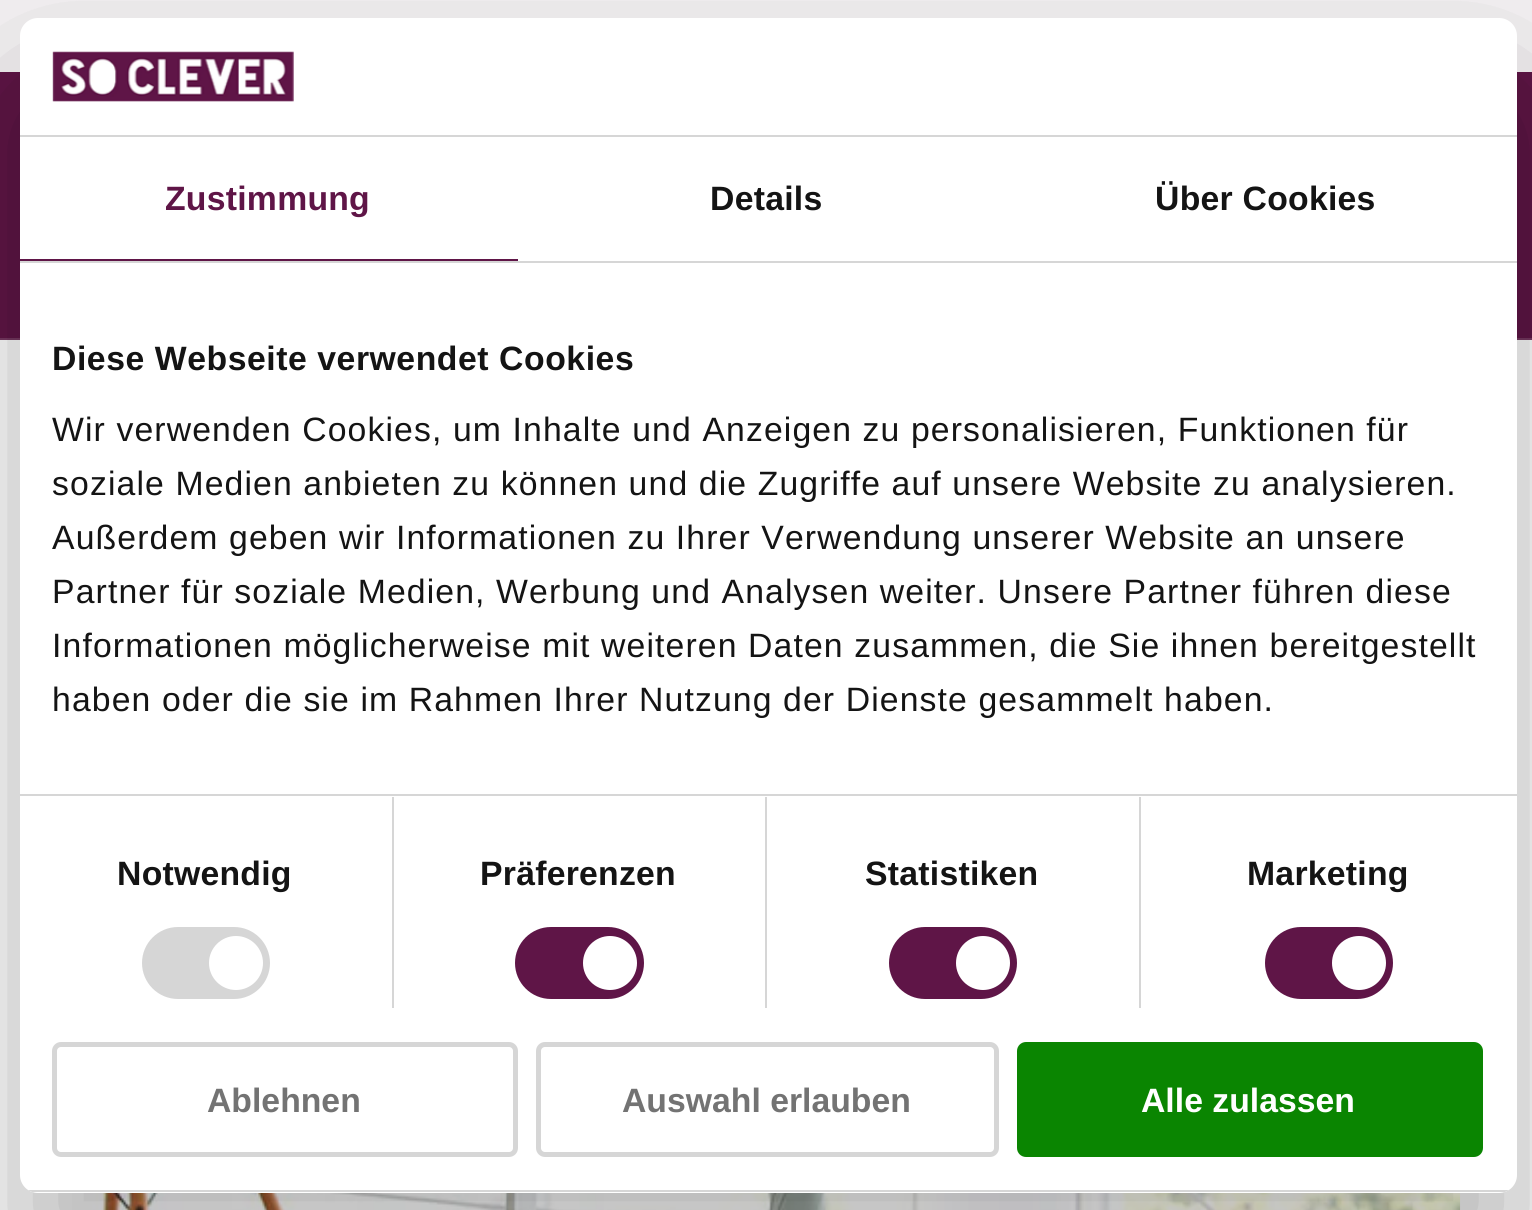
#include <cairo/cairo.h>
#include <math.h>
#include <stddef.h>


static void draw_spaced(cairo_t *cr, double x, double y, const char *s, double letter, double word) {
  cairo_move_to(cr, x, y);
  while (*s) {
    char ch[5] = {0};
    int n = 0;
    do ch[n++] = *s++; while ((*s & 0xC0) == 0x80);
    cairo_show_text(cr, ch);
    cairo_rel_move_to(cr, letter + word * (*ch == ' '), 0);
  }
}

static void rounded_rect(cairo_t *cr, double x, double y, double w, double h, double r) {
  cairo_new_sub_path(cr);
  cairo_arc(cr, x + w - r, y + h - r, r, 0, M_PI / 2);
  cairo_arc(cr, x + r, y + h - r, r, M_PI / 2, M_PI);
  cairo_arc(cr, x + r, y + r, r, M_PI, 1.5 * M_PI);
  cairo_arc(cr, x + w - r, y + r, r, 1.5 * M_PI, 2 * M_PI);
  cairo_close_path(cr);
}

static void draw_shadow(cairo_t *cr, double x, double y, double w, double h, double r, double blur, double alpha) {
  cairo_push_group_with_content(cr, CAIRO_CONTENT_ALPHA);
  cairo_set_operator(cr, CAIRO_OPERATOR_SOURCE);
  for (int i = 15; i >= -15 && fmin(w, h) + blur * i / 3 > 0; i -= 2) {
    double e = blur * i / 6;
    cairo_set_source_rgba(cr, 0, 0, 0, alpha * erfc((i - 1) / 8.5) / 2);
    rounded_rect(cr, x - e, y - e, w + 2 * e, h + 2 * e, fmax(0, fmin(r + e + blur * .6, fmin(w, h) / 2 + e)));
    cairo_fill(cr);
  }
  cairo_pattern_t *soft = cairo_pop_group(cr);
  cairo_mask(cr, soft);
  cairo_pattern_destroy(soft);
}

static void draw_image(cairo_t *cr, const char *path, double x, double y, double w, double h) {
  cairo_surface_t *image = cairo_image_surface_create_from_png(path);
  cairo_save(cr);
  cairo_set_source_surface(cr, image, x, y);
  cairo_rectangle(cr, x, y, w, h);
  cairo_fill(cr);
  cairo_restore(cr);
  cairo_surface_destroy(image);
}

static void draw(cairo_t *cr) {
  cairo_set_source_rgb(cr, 1, 1, 1);
  cairo_paint(cr);
  cairo_set_source_rgb(cr, 246 / 255.0, 243 / 255.0, 245 / 255.0);
  cairo_rectangle(cr, 0, 0, 1532, 72);
  cairo_fill(cr);
  cairo_set_source_rgb(cr, 95 / 255.0, 21 / 255.0, 70 / 255.0);
  cairo_rectangle(cr, 0, 72, 1532, 266);
  cairo_fill(cr);
  cairo_set_source_rgb(cr, 119 / 255.0, 56 / 255.0, 98 / 255.0);
  cairo_rectangle(cr, 0, 338, 1532, 2);
  cairo_fill(cr);
  draw_image(cr, "images/2.png", 72, 1193, 1389, 17);
  cairo_set_source_rgb(cr, 0, 0, 0);
  draw_shadow(cr, 20, 90, 1497, 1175, 18, 76.5, 0.3);
  cairo_set_source_rgb(cr, 1, 1, 1);
  rounded_rect(cr, 20, 18, 1497, 1175, 18);
  cairo_fill(cr);
  cairo_set_source_rgb(cr, 214 / 255.0, 214 / 255.0, 214 / 255.0);
  cairo_rectangle(cr, 20, 135, 1497, 2);
  cairo_fill(cr);
  draw_image(cr, "images/1.png", 52, 51, 242, 51);
  cairo_rectangle(cr, 20, 261, 1497, 2);
  cairo_fill(cr);
  cairo_set_source_rgb(cr, 95 / 255.0, 21 / 255.0, 71 / 255.0);
  cairo_rectangle(cr, 20, 259, 498, 2);
  cairo_fill(cr);
  cairo_set_source_rgb(cr, 214 / 255.0, 214 / 255.0, 214 / 255.0);
  cairo_rectangle(cr, 20, 794, 1497, 2);
  cairo_fill(cr);
  cairo_rectangle(cr, 392, 797, 2, 211);
  cairo_fill(cr);
  rounded_rect(cr, 142, 927, 128, 72, 36);
  cairo_fill(cr);
  cairo_set_source_rgb(cr, 1, 1, 1);
  cairo_arc(cr, 236, 963, 27, 0, 2 * M_PI);
  cairo_fill(cr);
  cairo_set_source_rgb(cr, 214 / 255.0, 214 / 255.0, 214 / 255.0);
  cairo_rectangle(cr, 765, 797, 2, 211);
  cairo_fill(cr);
  cairo_set_source_rgb(cr, 95 / 255.0, 21 / 255.0, 71 / 255.0);
  rounded_rect(cr, 515, 927, 129, 72, 36);
  cairo_fill(cr);
  cairo_set_source_rgb(cr, 1, 1, 1);
  cairo_arc(cr, 610, 963, 27, 0, 2 * M_PI);
  cairo_fill(cr);
  cairo_set_source_rgb(cr, 214 / 255.0, 214 / 255.0, 214 / 255.0);
  cairo_rectangle(cr, 1139, 797, 2, 211);
  cairo_fill(cr);
  cairo_set_source_rgb(cr, 95 / 255.0, 21 / 255.0, 71 / 255.0);
  rounded_rect(cr, 889, 927, 128, 72, 36);
  cairo_fill(cr);
  cairo_set_source_rgb(cr, 1, 1, 1);
  cairo_arc(cr, 983, 963, 27, 0, 2 * M_PI);
  cairo_fill(cr);
  cairo_set_source_rgb(cr, 95 / 255.0, 21 / 255.0, 71 / 255.0);
  rounded_rect(cr, 1265, 927, 128, 72, 36);
  cairo_fill(cr);
  cairo_set_source_rgb(cr, 1, 1, 1);
  cairo_arc(cr, 1359, 963, 27, 0, 2 * M_PI);
  cairo_fill(cr);
  cairo_save(cr);
  rounded_rect(cr, 20, 18, 1497, 1175, 18);
  cairo_clip(cr);
  cairo_set_source_rgb(cr, 214 / 255.0, 214 / 255.0, 214 / 255.0);
  cairo_rectangle(cr, 20, 1190, 1497, 2);
  cairo_fill(cr);
  cairo_restore(cr);
  rounded_rect(cr, 54.5, 1044.5, 461, 110, 6.5);
  cairo_set_source_rgb(cr, 214 / 255.0, 214 / 255.0, 214 / 255.0);
  cairo_set_line_width(cr, 5);
  cairo_stroke(cr);
  rounded_rect(cr, 538.5, 1044.5, 458, 110, 6.5);
  cairo_stroke(cr);
  cairo_set_source_rgb(cr, 10 / 255.0, 133 / 255.0, 1 / 255.0);
  rounded_rect(cr, 1019.5, 1044.5, 461, 110, 6.5);
  cairo_fill_preserve(cr);
  cairo_stroke(cr);
  cairo_select_font_face(cr, "Liberation Sans", CAIRO_FONT_SLANT_NORMAL, CAIRO_FONT_WEIGHT_BOLD);
  cairo_set_font_size(cr, 33.75);
  cairo_set_source_rgb(cr, 95 / 255.0, 21 / 255.0, 71 / 255.0);
  draw_spaced(cr, 165, 210, "Zustimmung", 0.25, 0);
  cairo_set_source_rgb(cr, 20 / 255.0, 20 / 255.0, 20 / 255.0);
  draw_spaced(cr, 710, 210, "Details", 0.25, 0);
  draw_spaced(cr, 1155, 210, "Über Cookies", 0.25, 0);
  draw_spaced(cr, 52, 370, "Diese Webseite verwendet Cookies", 0.55, 0);
  cairo_select_font_face(cr, "Liberation Sans", CAIRO_FONT_SLANT_NORMAL, CAIRO_FONT_WEIGHT_NORMAL);
  draw_spaced(cr, 52, 441, "Wir verwenden Cookies, um Inhalte und Anzeigen zu personalisieren, Funktionen für", 1.12, 0);
  draw_spaced(cr, 52, 495, "soziale Medien anbieten zu können und die Zugriffe auf unsere Website zu analysieren.", 1.12, 0);
  draw_spaced(cr, 52, 549, "Außerdem geben wir Informationen zu Ihrer Verwendung unserer Website an unsere", 1.12, 0);
  draw_spaced(cr, 52, 603, "Partner für soziale Medien, Werbung und Analysen weiter. Unsere Partner führen diese", 1.12, 0);
  draw_spaced(cr, 52, 657, "Informationen möglicherweise mit weiteren Daten zusammen, die Sie ihnen bereitgestellt", 1.12, 0);
  draw_spaced(cr, 52, 711, "haben oder die sie im Rahmen Ihrer Nutzung der Dienste gesammelt haben.", 1.12, 0);
  cairo_select_font_face(cr, "Liberation Sans", CAIRO_FONT_SLANT_NORMAL, CAIRO_FONT_WEIGHT_BOLD);
  draw_spaced(cr, 117, 885, "Notwendig", 0.25, 0);
  draw_spaced(cr, 480, 885, "Präferenzen", 0.25, 0);
  draw_spaced(cr, 865, 885, "Statistiken", 0.25, 0);
  draw_spaced(cr, 1247, 885, "Marketing", 0.25, 0);
  cairo_set_source_rgb(cr, 115 / 255.0, 115 / 255.0, 115 / 255.0);
  cairo_move_to(cr, 207, 1112);
  cairo_show_text(cr, "Ablehnen");
  cairo_move_to(cr, 622, 1112);
  cairo_show_text(cr, "Auswahl erlauben");
  cairo_set_source_rgb(cr, 1, 1, 1);
  cairo_move_to(cr, 1141, 1112);
  cairo_show_text(cr, "Alle zulassen");
}

int main(void) {
  cairo_surface_t *surface = cairo_image_surface_create(CAIRO_FORMAT_RGB24, 1532, 1210);
  cairo_t *cr = cairo_create(surface);
  cairo_font_options_t *options = cairo_font_options_create();
  cairo_font_options_set_hint_metrics(options, CAIRO_HINT_METRICS_OFF);
  cairo_font_options_set_hint_style(options, CAIRO_HINT_STYLE_NONE);
  cairo_set_font_options(cr, options);
  cairo_set_miter_limit(cr, 4);
  draw(cr);
  cairo_surface_write_to_png(surface, "out.png");
  cairo_font_options_destroy(options);
  cairo_destroy(cr);
  cairo_surface_destroy(surface);
  return 0;
}
